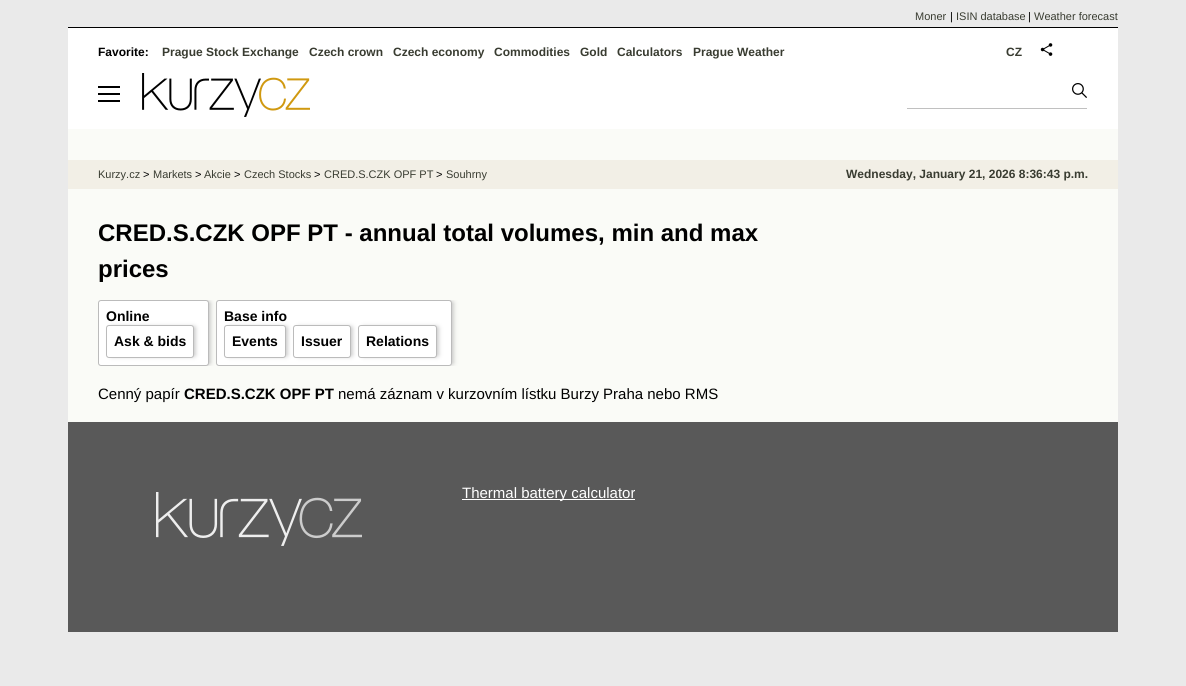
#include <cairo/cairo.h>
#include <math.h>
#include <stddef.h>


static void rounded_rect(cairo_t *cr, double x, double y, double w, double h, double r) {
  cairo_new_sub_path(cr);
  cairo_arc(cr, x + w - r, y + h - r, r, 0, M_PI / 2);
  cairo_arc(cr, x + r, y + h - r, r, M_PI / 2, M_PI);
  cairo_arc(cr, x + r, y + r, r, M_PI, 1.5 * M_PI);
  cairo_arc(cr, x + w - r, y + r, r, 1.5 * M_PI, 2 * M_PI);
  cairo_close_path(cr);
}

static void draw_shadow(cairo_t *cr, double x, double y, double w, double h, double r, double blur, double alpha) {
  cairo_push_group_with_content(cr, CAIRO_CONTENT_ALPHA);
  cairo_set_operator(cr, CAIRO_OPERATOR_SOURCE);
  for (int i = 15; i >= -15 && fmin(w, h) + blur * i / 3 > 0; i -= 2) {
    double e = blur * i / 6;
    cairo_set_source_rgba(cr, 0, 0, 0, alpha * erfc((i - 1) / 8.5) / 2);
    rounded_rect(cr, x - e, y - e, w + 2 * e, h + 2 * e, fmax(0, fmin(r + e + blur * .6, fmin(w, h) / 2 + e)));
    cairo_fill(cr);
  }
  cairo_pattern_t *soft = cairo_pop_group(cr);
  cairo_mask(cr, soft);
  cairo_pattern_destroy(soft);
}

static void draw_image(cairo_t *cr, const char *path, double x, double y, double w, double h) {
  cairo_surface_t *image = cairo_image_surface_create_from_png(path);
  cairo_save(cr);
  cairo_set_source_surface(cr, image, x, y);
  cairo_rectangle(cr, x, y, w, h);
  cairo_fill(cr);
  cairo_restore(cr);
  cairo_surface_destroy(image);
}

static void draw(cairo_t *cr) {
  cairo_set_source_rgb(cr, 234 / 255.0, 234 / 255.0, 234 / 255.0);
  cairo_paint(cr);
  cairo_set_source_rgb(cr, 250 / 255.0, 251 / 255.0, 247 / 255.0);
  cairo_rectangle(cr, 68, 129, 1050, 293);
  cairo_fill(cr);
  cairo_set_source_rgb(cr, 0, 0, 0);
  cairo_rectangle(cr, 68, 27, 1050, 1);
  cairo_fill(cr);
  cairo_set_source_rgb(cr, 1, 1, 1);
  cairo_rectangle(cr, 68, 28, 1050, 101);
  cairo_fill(cr);
  cairo_set_source_rgb(cr, 0, 0, 0);
  cairo_rectangle(cr, 98, 86, 22, 2);
  cairo_fill(cr);
  draw_image(cr, "images/1.png", 142, 73, 168, 44);
  cairo_set_source_rgb(cr, 192 / 255.0, 192 / 255.0, 192 / 255.0);
  cairo_rectangle(cr, 907, 108, 180, 1);
  cairo_fill(cr);
  draw_image(cr, "images/2.png", 1072, 83, 15, 15);
  cairo_set_source_rgb(cr, 0, 0, 0);
  cairo_rectangle(cr, 98, 93, 22, 2);
  cairo_fill(cr);
  cairo_rectangle(cr, 98, 100, 22, 2);
  cairo_fill(cr);
  draw_image(cr, "images/3.png", 1040, 43, 13, 13);
  cairo_set_source_rgb(cr, 242 / 255.0, 239 / 255.0, 230 / 255.0);
  cairo_rectangle(cr, 68, 160, 1050, 29);
  cairo_fill(cr);
  cairo_save(cr);
  cairo_rectangle(cr, 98, 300, 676, 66);
  cairo_clip(cr);
  cairo_set_source_rgb(cr, 187 / 255.0, 187 / 255.0, 187 / 255.0);
  draw_shadow(cr, 103, 302, 107, 62, 1, 2.5, 1);
  cairo_restore(cr);
  cairo_set_source_rgb(cr, 1, 1, 1);
  rounded_rect(cr, 98.5, 300.5, 110, 65, 2.5);
  cairo_fill_preserve(cr);
  cairo_set_source_rgb(cr, 187 / 255.0, 187 / 255.0, 187 / 255.0);
  cairo_set_line_width(cr, 1);
  cairo_stroke(cr);
  cairo_set_source_rgb(cr, 187 / 255.0, 187 / 255.0, 187 / 255.0);
  draw_shadow(cr, 111, 327, 84, 29, 1, 2.5, 1);
  cairo_set_source_rgb(cr, 1, 1, 1);
  rounded_rect(cr, 106.5, 325.5, 87, 32, 2.5);
  cairo_fill_preserve(cr);
  cairo_set_source_rgb(cr, 187 / 255.0, 187 / 255.0, 187 / 255.0);
  cairo_stroke(cr);
  cairo_save(cr);
  cairo_rectangle(cr, 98, 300, 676, 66);
  cairo_clip(cr);
  cairo_set_source_rgb(cr, 187 / 255.0, 187 / 255.0, 187 / 255.0);
  draw_shadow(cr, 221, 302, 232, 62, 1, 2.5, 1);
  cairo_restore(cr);
  cairo_set_source_rgb(cr, 1, 1, 1);
  rounded_rect(cr, 216.5, 300.5, 235, 65, 2.5);
  cairo_fill_preserve(cr);
  cairo_set_source_rgb(cr, 187 / 255.0, 187 / 255.0, 187 / 255.0);
  cairo_stroke(cr);
  cairo_set_source_rgb(cr, 187 / 255.0, 187 / 255.0, 187 / 255.0);
  draw_shadow(cr, 229, 327, 58, 29, 1, 2.5, 1);
  cairo_set_source_rgb(cr, 1, 1, 1);
  rounded_rect(cr, 224.5, 325.5, 61, 32, 2.5);
  cairo_fill_preserve(cr);
  cairo_set_source_rgb(cr, 187 / 255.0, 187 / 255.0, 187 / 255.0);
  cairo_stroke(cr);
  cairo_set_source_rgb(cr, 187 / 255.0, 187 / 255.0, 187 / 255.0);
  draw_shadow(cr, 298, 327, 54, 29, 1, 2.5, 1);
  cairo_set_source_rgb(cr, 1, 1, 1);
  rounded_rect(cr, 293.5, 325.5, 57, 32, 2.5);
  cairo_fill_preserve(cr);
  cairo_set_source_rgb(cr, 187 / 255.0, 187 / 255.0, 187 / 255.0);
  cairo_stroke(cr);
  cairo_set_source_rgb(cr, 187 / 255.0, 187 / 255.0, 187 / 255.0);
  draw_shadow(cr, 363, 327, 75, 29, 1, 2.5, 1);
  cairo_set_source_rgb(cr, 1, 1, 1);
  rounded_rect(cr, 358.5, 325.5, 78, 32, 2.5);
  cairo_fill_preserve(cr);
  cairo_set_source_rgb(cr, 187 / 255.0, 187 / 255.0, 187 / 255.0);
  cairo_stroke(cr);
  cairo_set_source_rgb(cr, 89 / 255.0, 89 / 255.0, 89 / 255.0);
  cairo_rectangle(cr, 68, 422, 1050, 210);
  cairo_fill(cr);
  draw_image(cr, "images/4.png", 156, 492, 206, 54);
  cairo_set_source_rgb(cr, 1, 1, 1);
  cairo_rectangle(cr, 462, 499, 173, 1);
  cairo_fill(cr);
  cairo_select_font_face(cr, "Liberation Sans", CAIRO_FONT_SLANT_NORMAL, CAIRO_FONT_WEIGHT_NORMAL);
  cairo_set_font_size(cr, 11);
  cairo_set_source_rgb(cr, 57 / 255.0, 60 / 255.0, 49 / 255.0);
  cairo_move_to(cr, 915, 20);
  cairo_show_text(cr, "Moner");
  cairo_set_source_rgb(cr, 0, 0, 0);
  cairo_move_to(cr, 950, 20);
  cairo_show_text(cr, "|");
  cairo_set_source_rgb(cr, 57 / 255.0, 60 / 255.0, 49 / 255.0);
  cairo_move_to(cr, 956, 20);
  cairo_show_text(cr, "ISIN database");
  cairo_set_source_rgb(cr, 0, 0, 0);
  cairo_move_to(cr, 1028, 20);
  cairo_show_text(cr, "|");
  cairo_set_source_rgb(cr, 57 / 255.0, 60 / 255.0, 49 / 255.0);
  cairo_move_to(cr, 1034, 20);
  cairo_show_text(cr, "Weather forecast");
  cairo_select_font_face(cr, "Liberation Sans", CAIRO_FONT_SLANT_NORMAL, CAIRO_FONT_WEIGHT_BOLD);
  cairo_set_font_size(cr, 12);
  cairo_set_source_rgb(cr, 0, 0, 0);
  cairo_move_to(cr, 98, 56);
  cairo_show_text(cr, "Favorite:");
  cairo_set_source_rgb(cr, 57 / 255.0, 60 / 255.0, 49 / 255.0);
  cairo_move_to(cr, 162, 56);
  cairo_show_text(cr, "Prague Stock Exchange");
  cairo_move_to(cr, 309, 56);
  cairo_show_text(cr, "Czech crown");
  cairo_move_to(cr, 393, 56);
  cairo_show_text(cr, "Czech economy");
  cairo_move_to(cr, 494, 56);
  cairo_show_text(cr, "Commodities");
  cairo_move_to(cr, 580, 56);
  cairo_show_text(cr, "Gold");
  cairo_move_to(cr, 617, 56);
  cairo_show_text(cr, "Calculators");
  cairo_move_to(cr, 693, 56);
  cairo_show_text(cr, "Prague Weather");
  cairo_move_to(cr, 1006, 56);
  cairo_show_text(cr, "CZ");
  cairo_select_font_face(cr, "Liberation Sans", CAIRO_FONT_SLANT_NORMAL, CAIRO_FONT_WEIGHT_NORMAL);
  cairo_set_font_size(cr, 11);
  cairo_move_to(cr, 98, 178);
  cairo_show_text(cr, "Kurzy.cz");
  cairo_set_source_rgb(cr, 0, 0, 0);
  cairo_move_to(cr, 143, 178);
  cairo_show_text(cr, ">");
  cairo_set_source_rgb(cr, 57 / 255.0, 60 / 255.0, 49 / 255.0);
  cairo_move_to(cr, 153, 178);
  cairo_show_text(cr, "Markets");
  cairo_set_source_rgb(cr, 0, 0, 0);
  cairo_move_to(cr, 195, 178);
  cairo_show_text(cr, ">");
  cairo_set_source_rgb(cr, 57 / 255.0, 60 / 255.0, 49 / 255.0);
  cairo_move_to(cr, 204, 178);
  cairo_show_text(cr, "Akcie");
  cairo_set_source_rgb(cr, 0, 0, 0);
  cairo_move_to(cr, 234, 178);
  cairo_show_text(cr, ">");
  cairo_set_source_rgb(cr, 57 / 255.0, 60 / 255.0, 49 / 255.0);
  cairo_move_to(cr, 244, 178);
  cairo_show_text(cr, "Czech Stocks");
  cairo_set_source_rgb(cr, 0, 0, 0);
  cairo_move_to(cr, 314, 178);
  cairo_show_text(cr, ">");
  cairo_set_source_rgb(cr, 57 / 255.0, 60 / 255.0, 49 / 255.0);
  cairo_move_to(cr, 324, 178);
  cairo_show_text(cr, "CRED.S.CZK OPF PT");
  cairo_set_source_rgb(cr, 0, 0, 0);
  cairo_move_to(cr, 436, 178);
  cairo_show_text(cr, ">");
  cairo_set_source_rgb(cr, 57 / 255.0, 60 / 255.0, 49 / 255.0);
  cairo_move_to(cr, 446, 178);
  cairo_show_text(cr, "Souhrny");
  cairo_select_font_face(cr, "Liberation Sans", CAIRO_FONT_SLANT_NORMAL, CAIRO_FONT_WEIGHT_BOLD);
  cairo_set_font_size(cr, 12);
  cairo_move_to(cr, 846, 178);
  cairo_show_text(cr, "Wednesday, January 21, 2026 8:36:43 p.m.");
  cairo_set_font_size(cr, 24);
  cairo_set_source_rgb(cr, 0, 0, 0);
  cairo_move_to(cr, 98, 241);
  cairo_show_text(cr, "CRED.S.CZK OPF PT - annual total volumes, min and max");
  cairo_move_to(cr, 98, 277);
  cairo_show_text(cr, "prices");
  cairo_set_font_size(cr, 14);
  cairo_move_to(cr, 106, 321);
  cairo_show_text(cr, "Online");
  cairo_move_to(cr, 114, 346);
  cairo_show_text(cr, "Ask & bids");
  cairo_move_to(cr, 224, 321);
  cairo_show_text(cr, "Base info");
  cairo_move_to(cr, 232, 346);
  cairo_show_text(cr, "Events");
  cairo_move_to(cr, 301, 346);
  cairo_show_text(cr, "Issuer");
  cairo_move_to(cr, 366, 346);
  cairo_show_text(cr, "Relations");
  cairo_select_font_face(cr, "Liberation Sans", CAIRO_FONT_SLANT_NORMAL, CAIRO_FONT_WEIGHT_NORMAL);
  cairo_set_font_size(cr, 15);
  cairo_move_to(cr, 98, 399);
  cairo_show_text(cr, "Cenný papír");
  cairo_select_font_face(cr, "Liberation Sans", CAIRO_FONT_SLANT_NORMAL, CAIRO_FONT_WEIGHT_BOLD);
  cairo_move_to(cr, 184, 399);
  cairo_show_text(cr, "CRED.S.CZK OPF PT");
  cairo_select_font_face(cr, "Liberation Sans", CAIRO_FONT_SLANT_NORMAL, CAIRO_FONT_WEIGHT_NORMAL);
  cairo_move_to(cr, 338, 399);
  cairo_show_text(cr, "nemá záznam v kurzovním lístku Burzy Praha nebo RMS");
  cairo_set_source_rgb(cr, 1, 1, 1);
  cairo_move_to(cr, 462, 498);
  cairo_show_text(cr, "Thermal battery calculator");
}

int main(void) {
  cairo_surface_t *surface = cairo_image_surface_create(CAIRO_FORMAT_RGB24, 1186, 686);
  cairo_t *cr = cairo_create(surface);
  cairo_font_options_t *options = cairo_font_options_create();
  cairo_font_options_set_hint_metrics(options, CAIRO_HINT_METRICS_OFF);
  cairo_font_options_set_hint_style(options, CAIRO_HINT_STYLE_NONE);
  cairo_set_font_options(cr, options);
  cairo_set_miter_limit(cr, 4);
  draw(cr);
  cairo_surface_write_to_png(surface, "out.png");
  cairo_font_options_destroy(options);
  cairo_destroy(cr);
  cairo_surface_destroy(surface);
  return 0;
}
